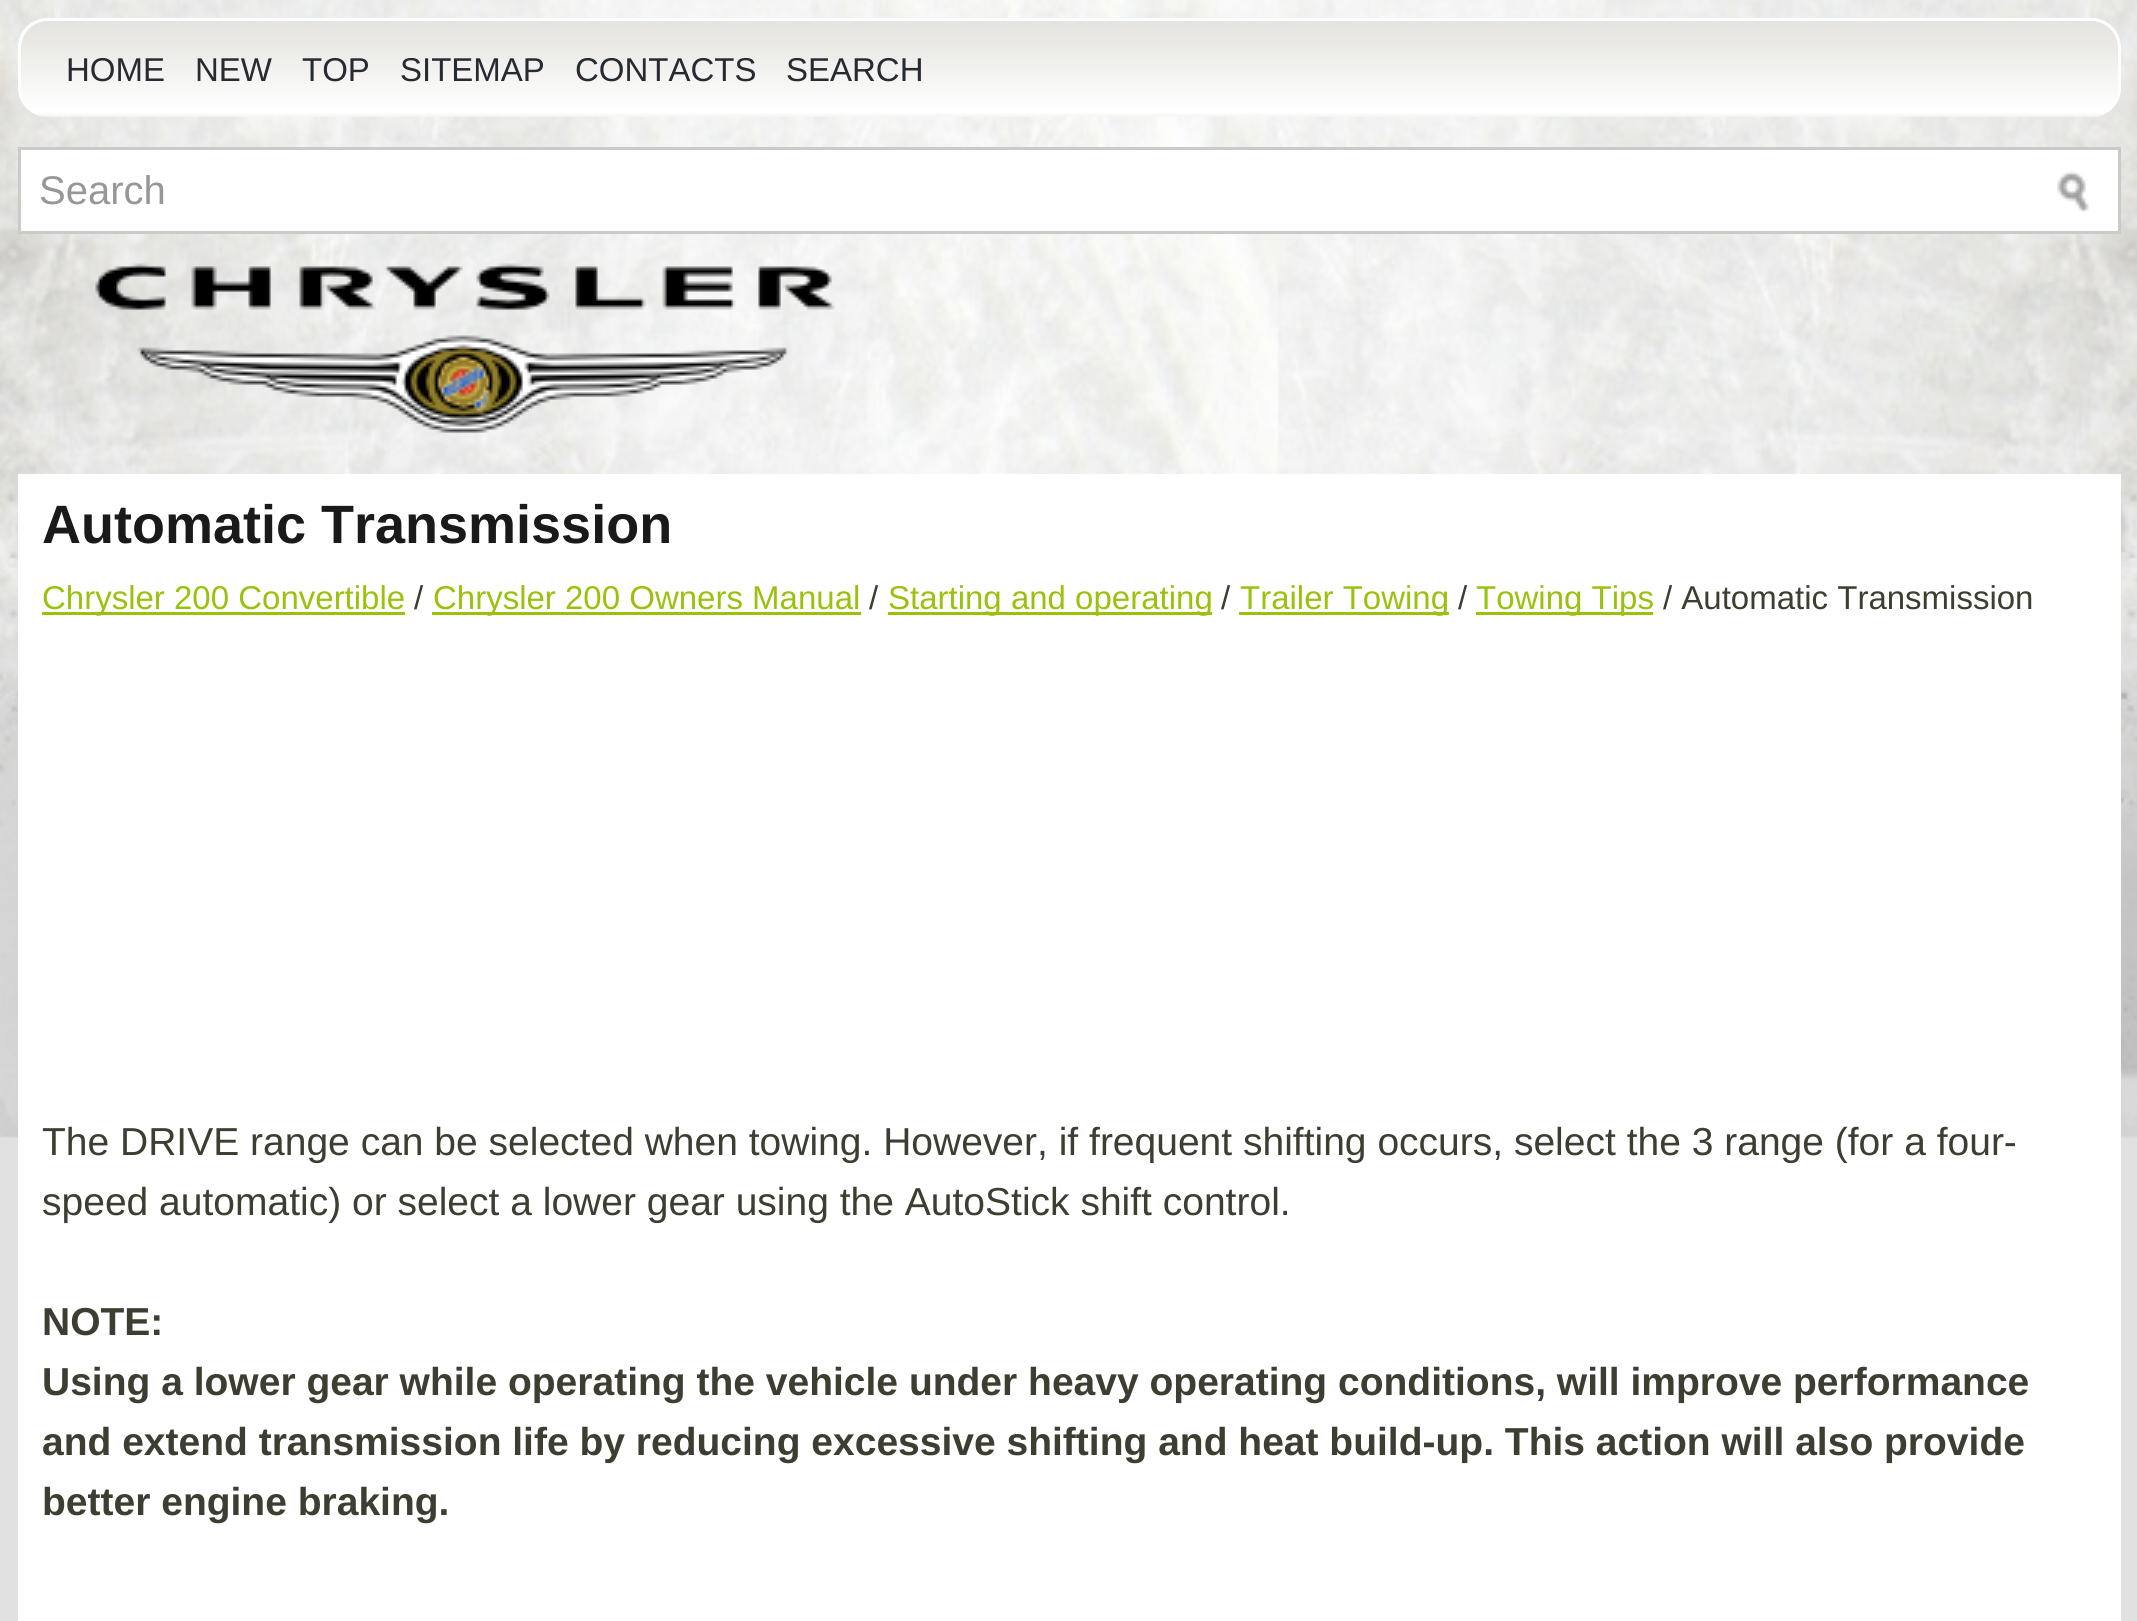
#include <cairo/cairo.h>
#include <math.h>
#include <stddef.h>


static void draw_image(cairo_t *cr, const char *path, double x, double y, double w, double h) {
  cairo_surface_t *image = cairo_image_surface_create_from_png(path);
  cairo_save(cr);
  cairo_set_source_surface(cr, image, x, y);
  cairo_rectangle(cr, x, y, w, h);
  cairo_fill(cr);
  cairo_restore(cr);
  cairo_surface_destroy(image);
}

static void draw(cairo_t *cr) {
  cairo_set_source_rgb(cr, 225 / 255.0, 225 / 255.0, 225 / 255.0);
  cairo_paint(cr);
  draw_image(cr, "images/1.png", 0, 0, 2137, 1138);
  draw_image(cr, "images/2.png", 18, 21, 2103, 96);
  cairo_set_source_rgb(cr, 1, 1, 1);
  cairo_set_fill_rule(cr, CAIRO_FILL_RULE_EVEN_ODD);
  cairo_new_path(cr);
  cairo_move_to(cr, 48, 18);
  cairo_line_to(cr, 2091, 18);
  cairo_curve_to(cr, 2108, 18, 2121, 31, 2121, 48);
  cairo_line_to(cr, 2121, 87);
  cairo_curve_to(cr, 2121, 104, 2108, 117, 2091, 117);
  cairo_line_to(cr, 48, 117);
  cairo_curve_to(cr, 31, 117, 18, 104, 18, 87);
  cairo_line_to(cr, 18, 48);
  cairo_curve_to(cr, 18, 31, 31, 18, 48, 18);
  cairo_close_path(cr);
  cairo_move_to(cr, 48, 21);
  cairo_line_to(cr, 2091, 21);
  cairo_curve_to(cr, 2106, 21, 2118, 33, 2118, 48);
  cairo_line_to(cr, 2118, 87);
  cairo_curve_to(cr, 2118, 104, 2106, 117, 2091, 117);
  cairo_line_to(cr, 48, 117);
  cairo_curve_to(cr, 33, 117, 21, 104, 21, 87);
  cairo_line_to(cr, 21, 48);
  cairo_curve_to(cr, 21, 33, 33, 21, 48, 21);
  cairo_close_path(cr);
  cairo_fill(cr);
  cairo_rectangle(cr, 19.5, 148.5, 2100, 84);
  cairo_fill_preserve(cr);
  cairo_set_source_rgb(cr, 202 / 255.0, 202 / 255.0, 201 / 255.0);
  cairo_set_line_width(cr, 3);
  cairo_stroke(cr);
  draw_image(cr, "images/3.png", 2057, 170, 32, 43);
  draw_image(cr, "images/4.png", 95, 263, 740, 170);
  cairo_set_source_rgb(cr, 1, 1, 1);
  cairo_rectangle(cr, 18, 474, 2103, 1147);
  cairo_fill(cr);
  cairo_set_source_rgb(cr, 154 / 255.0, 194 / 255.0, 13 / 255.0);
  cairo_rectangle(cr, 42, 612, 363, 3);
  cairo_fill(cr);
  cairo_rectangle(cr, 432, 612, 429, 3);
  cairo_fill(cr);
  cairo_rectangle(cr, 888, 612, 324, 3);
  cairo_fill(cr);
  cairo_rectangle(cr, 1239, 612, 210, 3);
  cairo_fill(cr);
  cairo_rectangle(cr, 1476, 612, 177, 3);
  cairo_fill(cr);
  cairo_select_font_face(cr, "Liberation Sans", CAIRO_FONT_SLANT_NORMAL, CAIRO_FONT_WEIGHT_NORMAL);
  cairo_set_font_size(cr, 33);
  cairo_set_source_rgb(cr, 38 / 255.0, 43 / 255.0, 50 / 255.0);
  cairo_move_to(cr, 66, 81);
  cairo_show_text(cr, "HOME");
  cairo_move_to(cr, 195, 81);
  cairo_show_text(cr, "NEW");
  cairo_move_to(cr, 302, 81);
  cairo_show_text(cr, "TOP");
  cairo_move_to(cr, 400, 81);
  cairo_show_text(cr, "SITEMAP");
  cairo_move_to(cr, 575, 81);
  cairo_show_text(cr, "CONTACTS");
  cairo_move_to(cr, 786, 81);
  cairo_show_text(cr, "SEARCH");
  cairo_set_font_size(cr, 40);
  cairo_set_source_rgb(cr, 151 / 255.0, 151 / 255.0, 151 / 255.0);
  cairo_move_to(cr, 39, 204);
  cairo_show_text(cr, "Search");
  cairo_select_font_face(cr, "Liberation Sans", CAIRO_FONT_SLANT_NORMAL, CAIRO_FONT_WEIGHT_BOLD);
  cairo_set_font_size(cr, 54);
  cairo_set_source_rgb(cr, 27 / 255.0, 26 / 255.0, 26 / 255.0);
  cairo_move_to(cr, 42, 543);
  cairo_show_text(cr, "Automatic Transmission");
  cairo_select_font_face(cr, "Liberation Sans", CAIRO_FONT_SLANT_NORMAL, CAIRO_FONT_WEIGHT_NORMAL);
  cairo_set_font_size(cr, 33);
  cairo_set_source_rgb(cr, 154 / 255.0, 194 / 255.0, 13 / 255.0);
  cairo_move_to(cr, 42, 609);
  cairo_show_text(cr, "Chrysler 200 Convertible");
  cairo_set_source_rgb(cr, 61 / 255.0, 61 / 255.0, 49 / 255.0);
  cairo_move_to(cr, 414, 609);
  cairo_show_text(cr, "/");
  cairo_set_source_rgb(cr, 154 / 255.0, 194 / 255.0, 13 / 255.0);
  cairo_move_to(cr, 433, 609);
  cairo_show_text(cr, "Chrysler 200 Owners Manual");
  cairo_set_source_rgb(cr, 61 / 255.0, 61 / 255.0, 49 / 255.0);
  cairo_move_to(cr, 869, 609);
  cairo_show_text(cr, "/");
  cairo_set_source_rgb(cr, 154 / 255.0, 194 / 255.0, 13 / 255.0);
  cairo_move_to(cr, 888, 609);
  cairo_show_text(cr, "Starting and operating");
  cairo_set_source_rgb(cr, 61 / 255.0, 61 / 255.0, 49 / 255.0);
  cairo_move_to(cr, 1221, 609);
  cairo_show_text(cr, "/");
  cairo_set_source_rgb(cr, 154 / 255.0, 194 / 255.0, 13 / 255.0);
  cairo_move_to(cr, 1240, 609);
  cairo_show_text(cr, "Trailer Towing");
  cairo_set_source_rgb(cr, 61 / 255.0, 61 / 255.0, 49 / 255.0);
  cairo_move_to(cr, 1458, 609);
  cairo_show_text(cr, "/");
  cairo_set_source_rgb(cr, 154 / 255.0, 194 / 255.0, 13 / 255.0);
  cairo_move_to(cr, 1476, 609);
  cairo_show_text(cr, "Towing Tips");
  cairo_set_source_rgb(cr, 61 / 255.0, 61 / 255.0, 49 / 255.0);
  cairo_move_to(cr, 1663, 609);
  cairo_show_text(cr, "/ Automatic Transmission");
  cairo_set_font_size(cr, 39);
  cairo_move_to(cr, 42, 1155);
  cairo_show_text(cr, "The DRIVE range can be selected when towing. However, if frequent shifting occurs, select the 3 range (for a four-");
  cairo_move_to(cr, 42, 1215);
  cairo_show_text(cr, "speed automatic) or select a lower gear using the AutoStick shift control.");
  cairo_select_font_face(cr, "Liberation Sans", CAIRO_FONT_SLANT_NORMAL, CAIRO_FONT_WEIGHT_BOLD);
  cairo_move_to(cr, 42, 1335);
  cairo_show_text(cr, "NOTE:");
  cairo_move_to(cr, 42, 1395);
  cairo_show_text(cr, "Using a lower gear while operating the vehicle under heavy operating conditions, will improve performance");
  cairo_move_to(cr, 42, 1455);
  cairo_show_text(cr, "and extend transmission life by reducing excessive shifting and heat build-up. This action will also provide");
  cairo_move_to(cr, 42, 1515);
  cairo_show_text(cr, "better engine braking.");
}

int main(void) {
  cairo_surface_t *surface = cairo_image_surface_create(CAIRO_FORMAT_RGB24, 2137, 1621);
  cairo_t *cr = cairo_create(surface);
  cairo_font_options_t *options = cairo_font_options_create();
  cairo_font_options_set_hint_metrics(options, CAIRO_HINT_METRICS_OFF);
  cairo_font_options_set_hint_style(options, CAIRO_HINT_STYLE_NONE);
  cairo_set_font_options(cr, options);
  cairo_set_miter_limit(cr, 4);
  draw(cr);
  cairo_surface_write_to_png(surface, "out.png");
  cairo_font_options_destroy(options);
  cairo_destroy(cr);
  cairo_surface_destroy(surface);
  return 0;
}
